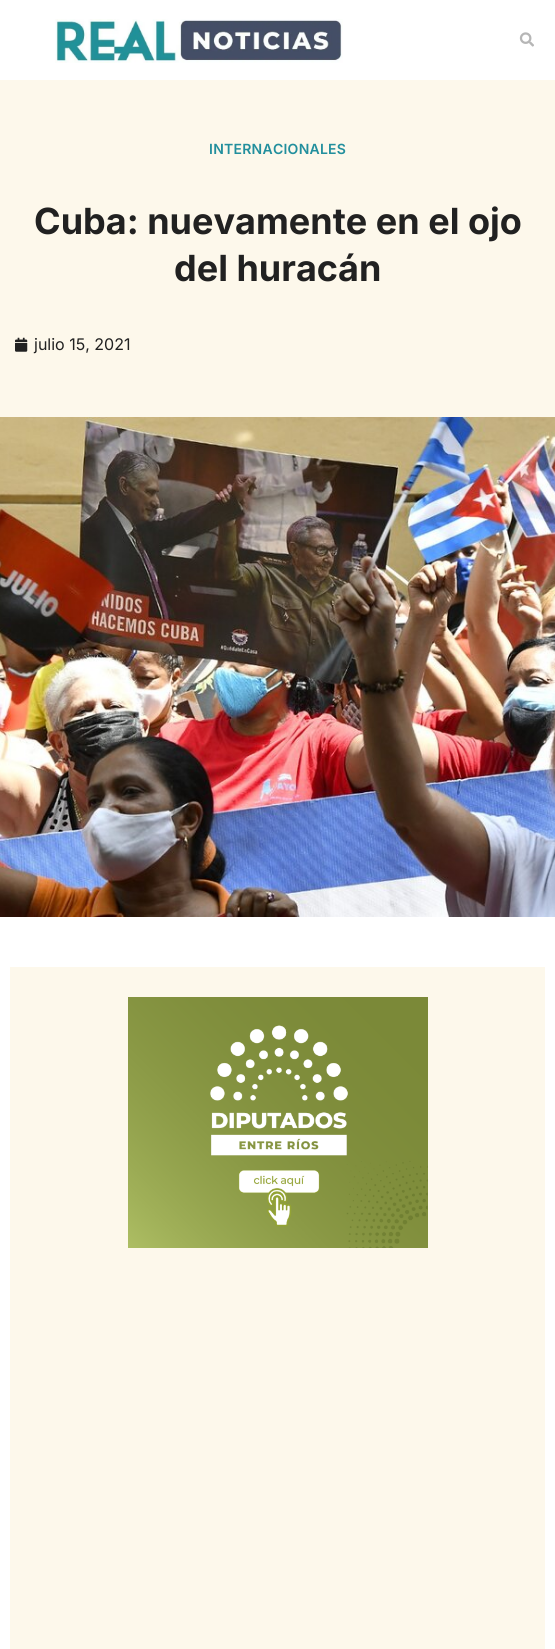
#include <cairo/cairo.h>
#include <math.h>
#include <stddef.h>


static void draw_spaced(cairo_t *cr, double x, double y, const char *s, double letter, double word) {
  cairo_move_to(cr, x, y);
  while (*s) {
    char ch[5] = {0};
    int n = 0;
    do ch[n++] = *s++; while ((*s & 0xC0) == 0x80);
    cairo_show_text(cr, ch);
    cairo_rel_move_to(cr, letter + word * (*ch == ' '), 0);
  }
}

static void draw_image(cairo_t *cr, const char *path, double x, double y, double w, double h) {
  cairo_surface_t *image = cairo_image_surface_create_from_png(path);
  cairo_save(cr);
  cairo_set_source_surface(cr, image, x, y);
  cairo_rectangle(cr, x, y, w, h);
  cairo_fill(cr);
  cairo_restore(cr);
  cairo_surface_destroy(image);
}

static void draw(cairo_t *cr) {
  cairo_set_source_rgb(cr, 1, 1, 1);
  cairo_paint(cr);
  draw_image(cr, "images/1.png", 55, 19, 288, 44);
  draw_image(cr, "images/2.png", 519, 32, 15, 15);
  cairo_set_source_rgb(cr, 253 / 255.0, 248 / 255.0, 235 / 255.0);
  cairo_rectangle(cr, 0, 80, 555, 337);
  cairo_fill(cr);
  draw_image(cr, "images/3.png", 15, 337, 13, 15);
  draw_image(cr, "images/4.png", 0, 417, 555, 500);
  cairo_rectangle(cr, 10, 967, 535, 682);
  cairo_fill(cr);
  draw_image(cr, "images/5.png", 128, 997, 300, 251);
  cairo_select_font_face(cr, "Inter SemiBold", CAIRO_FONT_SLANT_NORMAL, CAIRO_FONT_WEIGHT_NORMAL);
  cairo_set_font_size(cr, 14);
  cairo_set_source_rgb(cr, 34 / 255.0, 143 / 255.0, 157 / 255.0);
  draw_spaced(cr, 209, 154, "INTERNACIONALES", 0.25, 0);
  cairo_select_font_face(cr, "Inter", CAIRO_FONT_SLANT_NORMAL, CAIRO_FONT_WEIGHT_BOLD);
  cairo_set_font_size(cr, 36);
  cairo_set_source_rgb(cr, 33 / 255.0, 33 / 255.0, 33 / 255.0);
  cairo_move_to(cr, 34, 234);
  cairo_show_text(cr, "Cuba: nuevamente en el ojo");
  cairo_move_to(cr, 174, 281);
  cairo_show_text(cr, "del huracán");
  cairo_select_font_face(cr, "Inter", CAIRO_FONT_SLANT_NORMAL, CAIRO_FONT_WEIGHT_NORMAL);
  cairo_set_font_size(cr, 16);
  cairo_move_to(cr, 34, 350);
  cairo_show_text(cr, "julio 15, 2021");
}

int main(void) {
  cairo_surface_t *surface = cairo_image_surface_create(CAIRO_FORMAT_RGB24, 555, 1649);
  cairo_t *cr = cairo_create(surface);
  cairo_font_options_t *options = cairo_font_options_create();
  cairo_font_options_set_hint_metrics(options, CAIRO_HINT_METRICS_OFF);
  cairo_font_options_set_hint_style(options, CAIRO_HINT_STYLE_NONE);
  cairo_set_font_options(cr, options);
  cairo_set_miter_limit(cr, 4);
  draw(cr);
  cairo_surface_write_to_png(surface, "out.png");
  cairo_font_options_destroy(options);
  cairo_destroy(cr);
  cairo_surface_destroy(surface);
  return 0;
}
